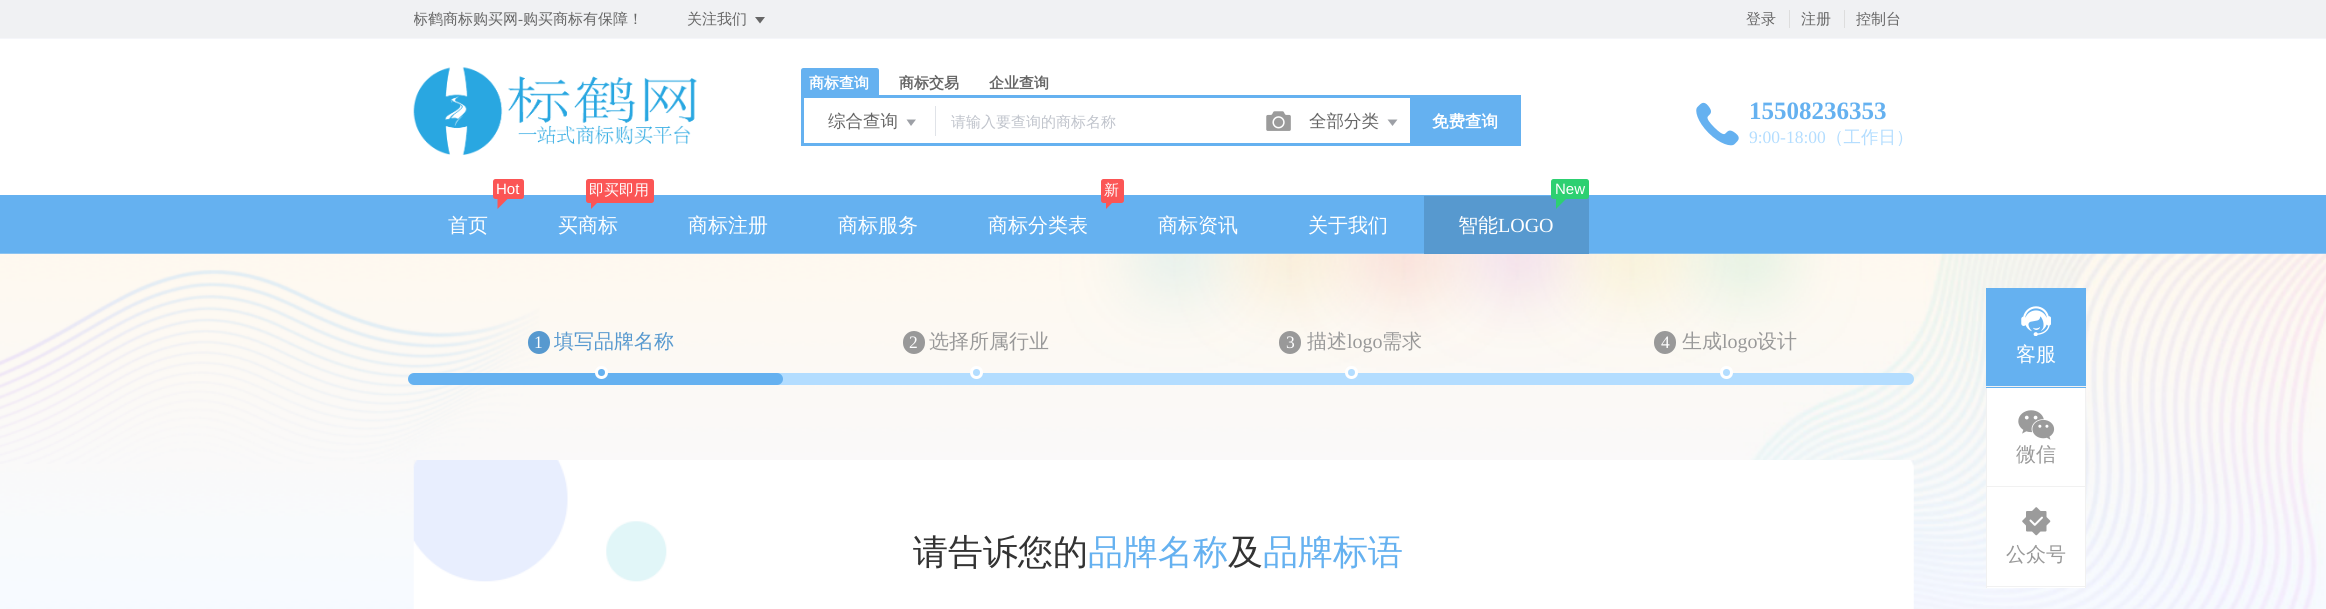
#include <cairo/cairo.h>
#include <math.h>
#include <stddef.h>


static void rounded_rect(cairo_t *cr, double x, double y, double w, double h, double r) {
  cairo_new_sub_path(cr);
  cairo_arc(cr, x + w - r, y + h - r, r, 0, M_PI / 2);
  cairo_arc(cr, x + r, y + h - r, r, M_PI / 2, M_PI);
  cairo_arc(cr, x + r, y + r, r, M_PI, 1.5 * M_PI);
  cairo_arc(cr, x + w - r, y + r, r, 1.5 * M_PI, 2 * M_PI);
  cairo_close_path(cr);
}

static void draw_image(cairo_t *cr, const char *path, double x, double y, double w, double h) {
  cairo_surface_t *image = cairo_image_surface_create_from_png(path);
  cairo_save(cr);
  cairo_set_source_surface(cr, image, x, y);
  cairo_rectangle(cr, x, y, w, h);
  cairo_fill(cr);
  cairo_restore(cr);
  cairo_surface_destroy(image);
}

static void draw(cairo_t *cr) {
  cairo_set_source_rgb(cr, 245 / 255.0, 246 / 255.0, 250 / 255.0);
  cairo_paint(cr);
  cairo_set_source_rgb(cr, 240 / 255.0, 241 / 255.0, 243 / 255.0);
  cairo_rectangle(cr, 0, 0, 2326, 38);
  cairo_fill(cr);
  cairo_set_source_rgb(cr, 102 / 255.0, 102 / 255.0, 102 / 255.0);
  cairo_new_path(cr);
  cairo_move_to(cr, 755, 17);
  cairo_line_to(cr, 765, 17);
  cairo_line_to(cr, 760, 23.5);
  cairo_close_path(cr);
  cairo_fill(cr);
  cairo_set_source_rgb(cr, 221 / 255.0, 221 / 255.0, 221 / 255.0);
  cairo_rectangle(cr, 1789, 10, 1, 18);
  cairo_fill(cr);
  cairo_rectangle(cr, 1844, 10, 1, 18);
  cairo_fill(cr);
  cairo_set_source_rgb(cr, 1, 1, 1);
  cairo_rectangle(cr, 0, 39, 2326, 156);
  cairo_fill(cr);
  draw_image(cr, "images/1.png", 413, 67, 284, 88);
  cairo_set_source_rgb(cr, 101 / 255.0, 177 / 255.0, 240 / 255.0);
  cairo_new_path(cr);
  cairo_move_to(cr, 803.5, 68);
  cairo_line_to(cr, 876.5, 68);
  cairo_curve_to(cr, 878, 68, 879, 69, 879, 70.5);
  cairo_line_to(cr, 879, 95);
  cairo_line_to(cr, 801, 95);
  cairo_line_to(cr, 801, 70.5);
  cairo_curve_to(cr, 801, 69, 802, 68, 803.5, 68);
  cairo_close_path(cr);
  cairo_fill(cr);
  cairo_rectangle(cr, 801, 95, 720, 3);
  cairo_fill(cr);
  cairo_rectangle(cr, 801, 143, 720, 3);
  cairo_fill(cr);
  cairo_rectangle(cr, 801, 95, 3, 50);
  cairo_fill(cr);
  cairo_set_source_rgb(cr, 224 / 255.0, 227 / 255.0, 232 / 255.0);
  cairo_rectangle(cr, 935, 106, 1, 30);
  cairo_fill(cr);
  cairo_set_source_rgb(cr, 157 / 255.0, 160 / 255.0, 166 / 255.0);
  cairo_new_path(cr);
  cairo_move_to(cr, 906.5, 119.5);
  cairo_line_to(cr, 916, 119.5);
  cairo_line_to(cr, 911, 126);
  cairo_close_path(cr);
  cairo_fill(cr);
  draw_image(cr, "images/2.png", 1266, 111, 25, 20);
  cairo_new_path(cr);
  cairo_move_to(cr, 1387.5, 119.5);
  cairo_line_to(cr, 1397.5, 119.5);
  cairo_line_to(cr, 1392.5, 126);
  cairo_close_path(cr);
  cairo_fill(cr);
  cairo_set_source_rgb(cr, 101 / 255.0, 177 / 255.0, 240 / 255.0);
  cairo_rectangle(cr, 1410, 98, 111, 45);
  cairo_fill(cr);
  draw_image(cr, "images/3.png", 1696, 102, 43, 44);
  cairo_rectangle(cr, 0, 195, 2326, 59);
  cairo_fill(cr);
  cairo_set_source_rgb(cr, 251 / 255.0, 85 / 255.0, 85 / 255.0);
  rounded_rect(cr, 493, 179, 31, 20, 2.5);
  cairo_fill(cr);
  cairo_new_path(cr);
  cairo_move_to(cr, 497.5, 199);
  cairo_line_to(cr, 507.5, 199);
  cairo_line_to(cr, 497.5, 209);
  cairo_close_path(cr);
  cairo_fill(cr);
  rounded_rect(cr, 586, 179, 68, 24, 2.5);
  cairo_fill(cr);
  cairo_new_path(cr);
  cairo_move_to(cr, 591, 199);
  cairo_line_to(cr, 601, 199);
  cairo_line_to(cr, 591, 209);
  cairo_close_path(cr);
  cairo_fill(cr);
  rounded_rect(cr, 1101, 179, 23, 24, 2.5);
  cairo_fill(cr);
  cairo_new_path(cr);
  cairo_move_to(cr, 1106, 199);
  cairo_line_to(cr, 1116, 199);
  cairo_line_to(cr, 1106, 209);
  cairo_close_path(cr);
  cairo_fill(cr);
  draw_image(cr, "images/4.png", 0, 253, 2326, 356);
  cairo_set_source_rgb(cr, 87 / 255.0, 153 / 255.0, 207 / 255.0);
  cairo_rectangle(cr, 1424, 196, 165, 58);
  cairo_fill(cr);
  cairo_set_source_rgb(cr, 45 / 255.0, 208 / 255.0, 113 / 255.0);
  rounded_rect(cr, 1551, 179, 38, 20, 2.5);
  cairo_fill(cr);
  cairo_new_path(cr);
  cairo_move_to(cr, 1556, 199);
  cairo_line_to(cr, 1566, 199);
  cairo_line_to(cr, 1556, 209);
  cairo_close_path(cr);
  cairo_fill(cr);
  cairo_set_source_rgb(cr, 87 / 255.0, 153 / 255.0, 207 / 255.0);
  rounded_rect(cr, 528, 331, 22, 23, 11);
  cairo_fill(cr);
  cairo_set_source_rgb(cr, 179 / 255.0, 221 / 255.0, 1);
  rounded_rect(cr, 414, 373, 1500, 12, 6);
  cairo_fill(cr);
  cairo_set_source_rgb(cr, 101 / 255.0, 177 / 255.0, 240 / 255.0);
  rounded_rect(cr, 408, 373, 375, 12, 6);
  cairo_fill(cr);
  cairo_arc(cr, 601.5, 372.5, 5, 0, 2 * M_PI);
  cairo_fill_preserve(cr);
  cairo_set_source_rgb(cr, 1, 1, 1);
  cairo_set_line_width(cr, 3);
  cairo_stroke(cr);
  cairo_set_source_rgb(cr, 153 / 255.0, 153 / 255.0, 153 / 255.0);
  rounded_rect(cr, 903, 331, 22, 23, 11);
  cairo_fill(cr);
  cairo_set_source_rgb(cr, 179 / 255.0, 221 / 255.0, 1);
  cairo_arc(cr, 976.5, 372.5, 5, 0, 2 * M_PI);
  cairo_fill_preserve(cr);
  cairo_set_source_rgb(cr, 1, 1, 1);
  cairo_stroke(cr);
  cairo_set_source_rgb(cr, 153 / 255.0, 153 / 255.0, 153 / 255.0);
  rounded_rect(cr, 1279, 331, 22, 23, 11);
  cairo_fill(cr);
  cairo_set_source_rgb(cr, 179 / 255.0, 221 / 255.0, 1);
  cairo_arc(cr, 1351.5, 372.5, 5, 0, 2 * M_PI);
  cairo_fill_preserve(cr);
  cairo_set_source_rgb(cr, 1, 1, 1);
  cairo_stroke(cr);
  cairo_set_source_rgb(cr, 153 / 255.0, 153 / 255.0, 153 / 255.0);
  rounded_rect(cr, 1654, 331, 22, 23, 11);
  cairo_fill(cr);
  cairo_set_source_rgb(cr, 179 / 255.0, 221 / 255.0, 1);
  cairo_arc(cr, 1726.5, 372.5, 5, 0, 2 * M_PI);
  cairo_fill_preserve(cr);
  cairo_set_source_rgb(cr, 1, 1, 1);
  cairo_stroke(cr);
  draw_image(cr, "images/5.png", 413, 460, 1501, 149);
  cairo_set_source_rgb(cr, 101 / 255.0, 177 / 255.0, 240 / 255.0);
  cairo_rectangle(cr, 1986, 288, 100, 100);
  cairo_fill(cr);
  cairo_set_source_rgb(cr, 241 / 255.0, 241 / 255.0, 241 / 255.0);
  cairo_rectangle(cr, 1986, 386, 100, 1);
  cairo_fill(cr);
  draw_image(cr, "images/6.png", 2021, 306, 30, 30);
  cairo_set_source_rgb(cr, 1, 1, 1);
  cairo_rectangle(cr, 1987, 388, 98, 200);
  cairo_fill(cr);
  cairo_set_source_rgb(cr, 241 / 255.0, 241 / 255.0, 241 / 255.0);
  cairo_rectangle(cr, 2085, 388, 1, 200);
  cairo_fill(cr);
  cairo_rectangle(cr, 1986, 486, 100, 1);
  cairo_fill(cr);
  cairo_rectangle(cr, 1986, 388, 1, 100);
  cairo_fill(cr);
  draw_image(cr, "images/7.png", 2018, 410, 37, 30);
  cairo_rectangle(cr, 1986, 586, 100, 1);
  cairo_fill(cr);
  cairo_rectangle(cr, 1986, 488, 1, 100);
  cairo_fill(cr);
  draw_image(cr, "images/8.png", 2022, 507, 29, 29);
  cairo_save(cr);
  cairo_rectangle(cr, 414, 0, 230, 38);
  cairo_clip(cr);
  cairo_select_font_face(cr, "WenQuanYi Zen Hei Medium", CAIRO_FONT_SLANT_NORMAL, CAIRO_FONT_WEIGHT_NORMAL);
  cairo_set_font_size(cr, 15);
  cairo_set_source_rgb(cr, 102 / 255.0, 102 / 255.0, 102 / 255.0);
  cairo_move_to(cr, 413, 24);
  cairo_show_text(cr, "标鹤商标购买网");
  cairo_restore(cr);
  cairo_select_font_face(cr, "Liberation Serif", CAIRO_FONT_SLANT_NORMAL, CAIRO_FONT_WEIGHT_NORMAL);
  cairo_set_font_size(cr, 15);
  cairo_set_source_rgb(cr, 102 / 255.0, 102 / 255.0, 102 / 255.0);
  cairo_move_to(cr, 518, 24);
  cairo_show_text(cr, "-");
  cairo_select_font_face(cr, "WenQuanYi Zen Hei Medium", CAIRO_FONT_SLANT_NORMAL, CAIRO_FONT_WEIGHT_NORMAL);
  cairo_move_to(cr, 523, 24);
  cairo_show_text(cr, "购买商标有保障！");
  cairo_move_to(cr, 687, 24);
  cairo_show_text(cr, "关注我们");
  cairo_move_to(cr, 1746, 24);
  cairo_show_text(cr, "登录");
  cairo_move_to(cr, 1801, 24);
  cairo_show_text(cr, "注册");
  cairo_move_to(cr, 1856, 24);
  cairo_show_text(cr, "控制台");
  cairo_select_font_face(cr, "WenQuanYi Zen Hei", CAIRO_FONT_SLANT_NORMAL, CAIRO_FONT_WEIGHT_BOLD);
  cairo_set_source_rgb(cr, 1, 1, 1);
  cairo_move_to(cr, 809, 88);
  cairo_show_text(cr, "商标查询");
  cairo_set_source_rgb(cr, 102 / 255.0, 102 / 255.0, 102 / 255.0);
  cairo_move_to(cr, 899, 88);
  cairo_show_text(cr, "商标交易");
  cairo_move_to(cr, 989, 88);
  cairo_show_text(cr, "企业查询");
  cairo_select_font_face(cr, "WenQuanYi Zen Hei Medium", CAIRO_FONT_SLANT_NORMAL, CAIRO_FONT_WEIGHT_NORMAL);
  cairo_set_font_size(cr, 17.5);
  cairo_move_to(cr, 828, 127);
  cairo_show_text(cr, "综合查询");
  cairo_set_font_size(cr, 15);
  cairo_set_source_rgb(cr, 192 / 255.0, 196 / 255.0, 204 / 255.0);
  cairo_move_to(cr, 951, 127);
  cairo_show_text(cr, "请输入要查询的商标名称");
  cairo_set_font_size(cr, 17.5);
  cairo_set_source_rgb(cr, 102 / 255.0, 102 / 255.0, 102 / 255.0);
  cairo_move_to(cr, 1309, 127);
  cairo_show_text(cr, "全部分类");
  cairo_select_font_face(cr, "WenQuanYi Zen Hei", CAIRO_FONT_SLANT_NORMAL, CAIRO_FONT_WEIGHT_BOLD);
  cairo_set_font_size(cr, 16.5);
  cairo_set_source_rgb(cr, 1, 1, 1);
  cairo_move_to(cr, 1432, 127);
  cairo_show_text(cr, "免费查询");
  cairo_select_font_face(cr, "Liberation Serif", CAIRO_FONT_SLANT_NORMAL, CAIRO_FONT_WEIGHT_BOLD);
  cairo_set_font_size(cr, 25);
  cairo_set_source_rgb(cr, 101 / 255.0, 177 / 255.0, 240 / 255.0);
  cairo_move_to(cr, 1749, 119);
  cairo_show_text(cr, "15508236353");
  cairo_select_font_face(cr, "Liberation Serif", CAIRO_FONT_SLANT_NORMAL, CAIRO_FONT_WEIGHT_NORMAL);
  cairo_set_font_size(cr, 17.5);
  cairo_set_source_rgb(cr, 179 / 255.0, 221 / 255.0, 1);
  cairo_move_to(cr, 1749, 143);
  cairo_show_text(cr, "9:00-18:00");
  cairo_select_font_face(cr, "WenQuanYi Zen Hei Medium", CAIRO_FONT_SLANT_NORMAL, CAIRO_FONT_WEIGHT_NORMAL);
  cairo_move_to(cr, 1826, 143);
  cairo_show_text(cr, "（工作日）");
  cairo_select_font_face(cr, "Liberation Sans", CAIRO_FONT_SLANT_NORMAL, CAIRO_FONT_WEIGHT_NORMAL);
  cairo_set_font_size(cr, 15);
  cairo_set_source_rgb(cr, 1, 1, 1);
  cairo_move_to(cr, 496, 194);
  cairo_show_text(cr, "Hot");
  cairo_select_font_face(cr, "WenQuanYi Zen Hei Medium", CAIRO_FONT_SLANT_NORMAL, CAIRO_FONT_WEIGHT_NORMAL);
  cairo_set_font_size(cr, 20);
  cairo_move_to(cr, 448, 232);
  cairo_show_text(cr, "首页");
  cairo_set_font_size(cr, 15);
  cairo_move_to(cr, 589, 195);
  cairo_show_text(cr, "即买即用");
  cairo_set_font_size(cr, 20);
  cairo_move_to(cr, 558, 232);
  cairo_show_text(cr, "买商标");
  cairo_move_to(cr, 688, 232);
  cairo_show_text(cr, "商标注册");
  cairo_move_to(cr, 838, 232);
  cairo_show_text(cr, "商标服务");
  cairo_set_font_size(cr, 15);
  cairo_move_to(cr, 1104, 195);
  cairo_show_text(cr, "新");
  cairo_set_font_size(cr, 20);
  cairo_move_to(cr, 988, 232);
  cairo_show_text(cr, "商标分类表");
  cairo_move_to(cr, 1158, 232);
  cairo_show_text(cr, "商标资讯");
  cairo_move_to(cr, 1308, 232);
  cairo_show_text(cr, "关于我们");
  cairo_select_font_face(cr, "Liberation Sans", CAIRO_FONT_SLANT_NORMAL, CAIRO_FONT_WEIGHT_NORMAL);
  cairo_set_font_size(cr, 15);
  cairo_move_to(cr, 1555, 194);
  cairo_show_text(cr, "New");
  cairo_select_font_face(cr, "WenQuanYi Zen Hei Medium", CAIRO_FONT_SLANT_NORMAL, CAIRO_FONT_WEIGHT_NORMAL);
  cairo_set_font_size(cr, 20);
  cairo_move_to(cr, 1458, 232);
  cairo_show_text(cr, "智能");
  cairo_select_font_face(cr, "Liberation Serif", CAIRO_FONT_SLANT_NORMAL, CAIRO_FONT_WEIGHT_NORMAL);
  cairo_move_to(cr, 1498, 232);
  cairo_show_text(cr, "LOGO");
  cairo_set_font_size(cr, 17.5);
  cairo_move_to(cr, 534, 348);
  cairo_show_text(cr, "1");
  cairo_select_font_face(cr, "WenQuanYi Zen Hei Medium", CAIRO_FONT_SLANT_NORMAL, CAIRO_FONT_WEIGHT_NORMAL);
  cairo_set_font_size(cr, 20);
  cairo_set_source_rgb(cr, 87 / 255.0, 153 / 255.0, 207 / 255.0);
  cairo_move_to(cr, 554, 348);
  cairo_show_text(cr, "填写品牌名称");
  cairo_select_font_face(cr, "Liberation Serif", CAIRO_FONT_SLANT_NORMAL, CAIRO_FONT_WEIGHT_NORMAL);
  cairo_set_font_size(cr, 17.5);
  cairo_set_source_rgb(cr, 1, 1, 1);
  cairo_move_to(cr, 909, 348);
  cairo_show_text(cr, "2");
  cairo_select_font_face(cr, "WenQuanYi Zen Hei Medium", CAIRO_FONT_SLANT_NORMAL, CAIRO_FONT_WEIGHT_NORMAL);
  cairo_set_font_size(cr, 20);
  cairo_set_source_rgb(cr, 153 / 255.0, 153 / 255.0, 153 / 255.0);
  cairo_move_to(cr, 929, 348);
  cairo_show_text(cr, "选择所属行业");
  cairo_select_font_face(cr, "Liberation Serif", CAIRO_FONT_SLANT_NORMAL, CAIRO_FONT_WEIGHT_NORMAL);
  cairo_set_font_size(cr, 17.5);
  cairo_set_source_rgb(cr, 1, 1, 1);
  cairo_move_to(cr, 1286, 348);
  cairo_show_text(cr, "3");
  cairo_select_font_face(cr, "WenQuanYi Zen Hei Medium", CAIRO_FONT_SLANT_NORMAL, CAIRO_FONT_WEIGHT_NORMAL);
  cairo_set_font_size(cr, 20);
  cairo_set_source_rgb(cr, 153 / 255.0, 153 / 255.0, 153 / 255.0);
  cairo_move_to(cr, 1307, 348);
  cairo_show_text(cr, "描述");
  cairo_select_font_face(cr, "Liberation Serif", CAIRO_FONT_SLANT_NORMAL, CAIRO_FONT_WEIGHT_NORMAL);
  cairo_move_to(cr, 1347, 348);
  cairo_show_text(cr, "logo");
  cairo_select_font_face(cr, "WenQuanYi Zen Hei Medium", CAIRO_FONT_SLANT_NORMAL, CAIRO_FONT_WEIGHT_NORMAL);
  cairo_move_to(cr, 1382, 348);
  cairo_show_text(cr, "需求");
  cairo_select_font_face(cr, "Liberation Serif", CAIRO_FONT_SLANT_NORMAL, CAIRO_FONT_WEIGHT_NORMAL);
  cairo_set_font_size(cr, 17.5);
  cairo_set_source_rgb(cr, 1, 1, 1);
  cairo_move_to(cr, 1661, 348);
  cairo_show_text(cr, "4");
  cairo_select_font_face(cr, "WenQuanYi Zen Hei Medium", CAIRO_FONT_SLANT_NORMAL, CAIRO_FONT_WEIGHT_NORMAL);
  cairo_set_font_size(cr, 20);
  cairo_set_source_rgb(cr, 153 / 255.0, 153 / 255.0, 153 / 255.0);
  cairo_move_to(cr, 1682, 348);
  cairo_show_text(cr, "生成");
  cairo_select_font_face(cr, "Liberation Serif", CAIRO_FONT_SLANT_NORMAL, CAIRO_FONT_WEIGHT_NORMAL);
  cairo_move_to(cr, 1722, 348);
  cairo_show_text(cr, "logo");
  cairo_select_font_face(cr, "WenQuanYi Zen Hei Medium", CAIRO_FONT_SLANT_NORMAL, CAIRO_FONT_WEIGHT_NORMAL);
  cairo_move_to(cr, 1757, 348);
  cairo_show_text(cr, "设计");
  cairo_set_font_size(cr, 35);
  cairo_set_source_rgb(cr, 51 / 255.0, 51 / 255.0, 51 / 255.0);
  cairo_move_to(cr, 913, 564);
  cairo_show_text(cr, "请告诉您的");
  cairo_set_source_rgb(cr, 101 / 255.0, 177 / 255.0, 240 / 255.0);
  cairo_move_to(cr, 1088, 564);
  cairo_show_text(cr, "品牌名称");
  cairo_set_source_rgb(cr, 51 / 255.0, 51 / 255.0, 51 / 255.0);
  cairo_move_to(cr, 1228, 564);
  cairo_show_text(cr, "及");
  cairo_set_source_rgb(cr, 101 / 255.0, 177 / 255.0, 240 / 255.0);
  cairo_move_to(cr, 1263, 564);
  cairo_show_text(cr, "品牌标语");
  cairo_set_font_size(cr, 20);
  cairo_set_source_rgb(cr, 1, 1, 1);
  cairo_move_to(cr, 2016, 361);
  cairo_show_text(cr, "客服");
  cairo_set_source_rgb(cr, 153 / 255.0, 153 / 255.0, 153 / 255.0);
  cairo_move_to(cr, 2016, 461);
  cairo_show_text(cr, "微信");
  cairo_move_to(cr, 2006, 561);
  cairo_show_text(cr, "公众号");
}

int main(void) {
  cairo_surface_t *surface = cairo_image_surface_create(CAIRO_FORMAT_RGB24, 2326, 609);
  cairo_t *cr = cairo_create(surface);
  cairo_font_options_t *options = cairo_font_options_create();
  cairo_font_options_set_hint_metrics(options, CAIRO_HINT_METRICS_OFF);
  cairo_font_options_set_hint_style(options, CAIRO_HINT_STYLE_NONE);
  cairo_set_font_options(cr, options);
  cairo_set_miter_limit(cr, 4);
  draw(cr);
  cairo_surface_write_to_png(surface, "out.png");
  cairo_font_options_destroy(options);
  cairo_destroy(cr);
  cairo_surface_destroy(surface);
  return 0;
}
